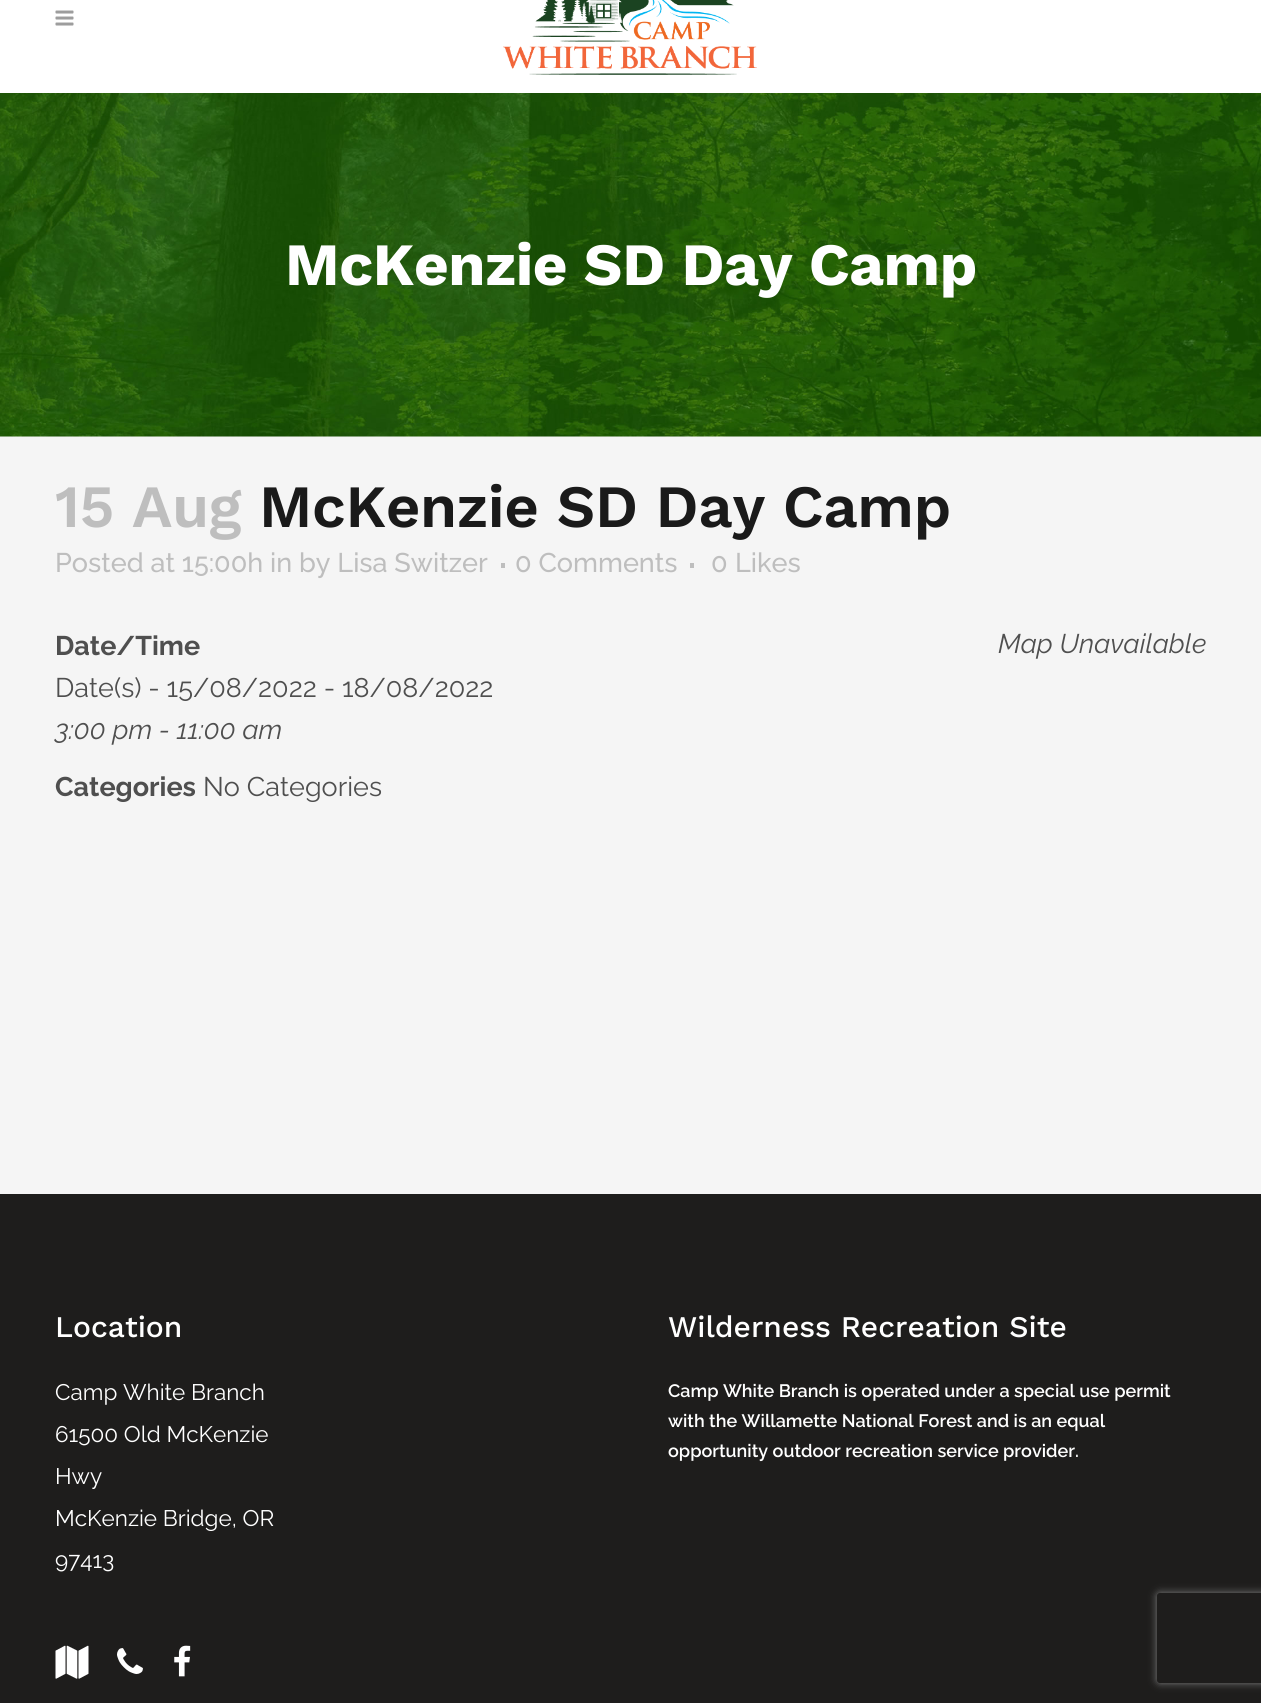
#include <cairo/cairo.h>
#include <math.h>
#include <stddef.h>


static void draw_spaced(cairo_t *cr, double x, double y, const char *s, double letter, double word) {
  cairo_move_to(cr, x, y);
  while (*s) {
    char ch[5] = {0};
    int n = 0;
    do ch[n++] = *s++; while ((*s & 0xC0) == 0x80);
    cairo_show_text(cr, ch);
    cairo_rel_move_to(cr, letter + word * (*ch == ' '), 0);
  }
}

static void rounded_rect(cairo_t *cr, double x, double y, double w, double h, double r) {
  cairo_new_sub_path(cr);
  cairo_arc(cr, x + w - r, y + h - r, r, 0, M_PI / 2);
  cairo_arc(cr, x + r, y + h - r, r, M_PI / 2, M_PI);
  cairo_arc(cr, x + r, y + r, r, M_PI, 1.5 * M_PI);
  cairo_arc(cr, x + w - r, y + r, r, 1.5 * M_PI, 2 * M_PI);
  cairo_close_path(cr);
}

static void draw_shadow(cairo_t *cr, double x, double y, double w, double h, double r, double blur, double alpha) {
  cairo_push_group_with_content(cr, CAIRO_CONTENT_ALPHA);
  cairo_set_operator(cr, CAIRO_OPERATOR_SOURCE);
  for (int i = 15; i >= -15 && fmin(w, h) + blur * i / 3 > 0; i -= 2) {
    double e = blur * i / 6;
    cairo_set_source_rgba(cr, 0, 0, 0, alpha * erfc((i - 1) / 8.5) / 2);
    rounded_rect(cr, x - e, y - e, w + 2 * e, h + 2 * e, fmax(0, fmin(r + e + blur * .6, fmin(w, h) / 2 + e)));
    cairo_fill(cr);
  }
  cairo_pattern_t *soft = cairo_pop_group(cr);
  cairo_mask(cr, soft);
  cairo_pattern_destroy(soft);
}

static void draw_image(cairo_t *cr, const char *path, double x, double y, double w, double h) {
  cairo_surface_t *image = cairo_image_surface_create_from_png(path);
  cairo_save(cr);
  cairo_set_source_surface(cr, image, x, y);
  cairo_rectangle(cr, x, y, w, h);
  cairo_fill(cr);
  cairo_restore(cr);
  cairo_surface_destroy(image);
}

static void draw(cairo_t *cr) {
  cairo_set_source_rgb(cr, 245 / 255.0, 245 / 255.0, 245 / 255.0);
  cairo_paint(cr);
  cairo_set_source_rgb(cr, 1, 1, 1);
  cairo_rectangle(cr, 0, 0, 1261, 93);
  cairo_fill(cr);
  draw_image(cr, "images/1.png", 55, 10, 19, 16);
  draw_image(cr, "images/2.png", 503, 0, 254, 75);
  draw_image(cr, "images/3.png", 0, 93, 1261, 344);
  cairo_set_source_rgb(cr, 190 / 255.0, 190 / 255.0, 190 / 255.0);
  cairo_rectangle(cr, 501, 563, 4, 5);
  cairo_fill(cr);
  cairo_rectangle(cr, 690, 563, 4, 5);
  cairo_fill(cr);
  cairo_set_source_rgb(cr, 30 / 255.0, 29 / 255.0, 28 / 255.0);
  cairo_rectangle(cr, 0, 1194, 1261, 509);
  cairo_fill(cr);
  draw_image(cr, "images/4.png", 55, 1645, 34, 34);
  draw_image(cr, "images/5.png", 117, 1648, 26, 26);
  draw_image(cr, "images/6.png", 174, 1645, 17, 32);
  cairo_save(cr);
  cairo_set_fill_rule(cr, CAIRO_FILL_RULE_EVEN_ODD);
  cairo_new_path(cr);
  cairo_move_to(cr, 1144, 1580);
  cairo_line_to(cr, 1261, 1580);
  cairo_line_to(cr, 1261, 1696);
  cairo_line_to(cr, 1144, 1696);
  cairo_close_path(cr);
  cairo_move_to(cr, 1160, 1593);
  cairo_line_to(cr, 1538, 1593);
  cairo_curve_to(cr, 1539.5, 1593, 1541, 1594.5, 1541, 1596);
  cairo_line_to(cr, 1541, 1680);
  cairo_curve_to(cr, 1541, 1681.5, 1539.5, 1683, 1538, 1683);
  cairo_line_to(cr, 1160, 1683);
  cairo_curve_to(cr, 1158.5, 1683, 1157, 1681.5, 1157, 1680);
  cairo_line_to(cr, 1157, 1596);
  cairo_curve_to(cr, 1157, 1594.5, 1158.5, 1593, 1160, 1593);
  cairo_close_path(cr);
  cairo_clip(cr);
  cairo_set_source_rgb(cr, 128 / 255.0, 128 / 255.0, 128 / 255.0);
  draw_shadow(cr, 1157, 1593, 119, 90, 3, 4, 1);
  cairo_restore(cr);
  cairo_select_font_face(cr, "Work Sans", CAIRO_FONT_SLANT_NORMAL, CAIRO_FONT_WEIGHT_BOLD);
  cairo_set_font_size(cr, 60);
  cairo_set_source_rgb(cr, 1, 1, 1);
  draw_spaced(cr, 285, 285, "McKenzie SD Day Camp", -0.4, 0);
  cairo_select_font_face(cr, "Work Sans SemiBold", CAIRO_FONT_SLANT_NORMAL, CAIRO_FONT_WEIGHT_NORMAL);
  cairo_set_source_rgb(cr, 190 / 255.0, 190 / 255.0, 190 / 255.0);
  draw_spaced(cr, 55, 527, "15 Aug", -0.4, 0);
  cairo_set_source_rgb(cr, 26 / 255.0, 26 / 255.0, 26 / 255.0);
  draw_spaced(cr, 259, 527, "McKenzie SD Day Camp", -0.4, 0);
  cairo_select_font_face(cr, "Raleway Medium", CAIRO_FONT_SLANT_NORMAL, CAIRO_FONT_WEIGHT_NORMAL);
  cairo_set_font_size(cr, 27);
  cairo_set_source_rgb(cr, 190 / 255.0, 190 / 255.0, 190 / 255.0);
  cairo_move_to(cr, 55, 572);
  cairo_show_text(cr, "Posted at 15:00h in by Lisa Switzer");
  cairo_move_to(cr, 515, 572);
  cairo_show_text(cr, "0 Comments");
  cairo_move_to(cr, 711, 572);
  cairo_show_text(cr, "0");
  cairo_move_to(cr, 735, 572);
  cairo_show_text(cr, "Likes");
  cairo_select_font_face(cr, "Raleway", CAIRO_FONT_SLANT_NORMAL, CAIRO_FONT_WEIGHT_BOLD);
  cairo_set_source_rgb(cr, 79 / 255.0, 79 / 255.0, 79 / 255.0);
  cairo_move_to(cr, 55, 655);
  cairo_show_text(cr, "Date/Time");
  cairo_select_font_face(cr, "Raleway", CAIRO_FONT_SLANT_NORMAL, CAIRO_FONT_WEIGHT_NORMAL);
  cairo_move_to(cr, 55, 697);
  cairo_show_text(cr, "Date(s) - 15/08/2022 - 18/08/2022");
  cairo_select_font_face(cr, "Raleway", CAIRO_FONT_SLANT_ITALIC, CAIRO_FONT_WEIGHT_NORMAL);
  cairo_move_to(cr, 55, 739);
  cairo_show_text(cr, "3:00 pm - 11:00 am");
  cairo_move_to(cr, 998, 653);
  cairo_show_text(cr, "Map Unavailable");
  cairo_select_font_face(cr, "Raleway", CAIRO_FONT_SLANT_NORMAL, CAIRO_FONT_WEIGHT_BOLD);
  cairo_move_to(cr, 55, 796);
  cairo_show_text(cr, "Categories");
  cairo_select_font_face(cr, "Raleway", CAIRO_FONT_SLANT_NORMAL, CAIRO_FONT_WEIGHT_NORMAL);
  cairo_move_to(cr, 203, 796);
  cairo_show_text(cr, "No Categories");
  cairo_select_font_face(cr, "Work Sans Medium", CAIRO_FONT_SLANT_NORMAL, CAIRO_FONT_WEIGHT_NORMAL);
  cairo_set_font_size(cr, 30);
  cairo_set_source_rgb(cr, 1, 1, 1);
  cairo_move_to(cr, 55, 1337);
  cairo_show_text(cr, "Location");
  cairo_select_font_face(cr, "Raleway", CAIRO_FONT_SLANT_NORMAL, CAIRO_FONT_WEIGHT_NORMAL);
  cairo_set_font_size(cr, 22.5);
  cairo_move_to(cr, 55, 1400);
  cairo_show_text(cr, "Camp White Branch");
  cairo_move_to(cr, 55, 1442);
  cairo_show_text(cr, "61500 Old McKenzie");
  cairo_move_to(cr, 55, 1484);
  cairo_show_text(cr, "Hwy");
  cairo_move_to(cr, 55, 1526);
  cairo_show_text(cr, "McKenzie Bridge, OR");
  cairo_move_to(cr, 55, 1568);
  cairo_show_text(cr, "97413");
  cairo_select_font_face(cr, "Work Sans Medium", CAIRO_FONT_SLANT_NORMAL, CAIRO_FONT_WEIGHT_NORMAL);
  cairo_set_font_size(cr, 30);
  cairo_move_to(cr, 668, 1337);
  cairo_show_text(cr, "Wilderness Recreation Site");
  cairo_select_font_face(cr, "Raleway SemiBold", CAIRO_FONT_SLANT_NORMAL, CAIRO_FONT_WEIGHT_NORMAL);
  cairo_set_font_size(cr, 18);
  cairo_move_to(cr, 668, 1397);
  cairo_show_text(cr, "Camp White Branch is operated under a special use permit");
  cairo_move_to(cr, 668, 1427);
  cairo_show_text(cr, "with the Willamette National Forest and is an equal");
  cairo_move_to(cr, 668, 1457);
  cairo_show_text(cr, "opportunity outdoor recreation service provider.");
}

int main(void) {
  cairo_surface_t *surface = cairo_image_surface_create(CAIRO_FORMAT_RGB24, 1261, 1703);
  cairo_t *cr = cairo_create(surface);
  cairo_font_options_t *options = cairo_font_options_create();
  cairo_font_options_set_hint_metrics(options, CAIRO_HINT_METRICS_OFF);
  cairo_font_options_set_hint_style(options, CAIRO_HINT_STYLE_NONE);
  cairo_set_font_options(cr, options);
  cairo_set_miter_limit(cr, 4);
  draw(cr);
  cairo_surface_write_to_png(surface, "out.png");
  cairo_font_options_destroy(options);
  cairo_destroy(cr);
  cairo_surface_destroy(surface);
  return 0;
}
